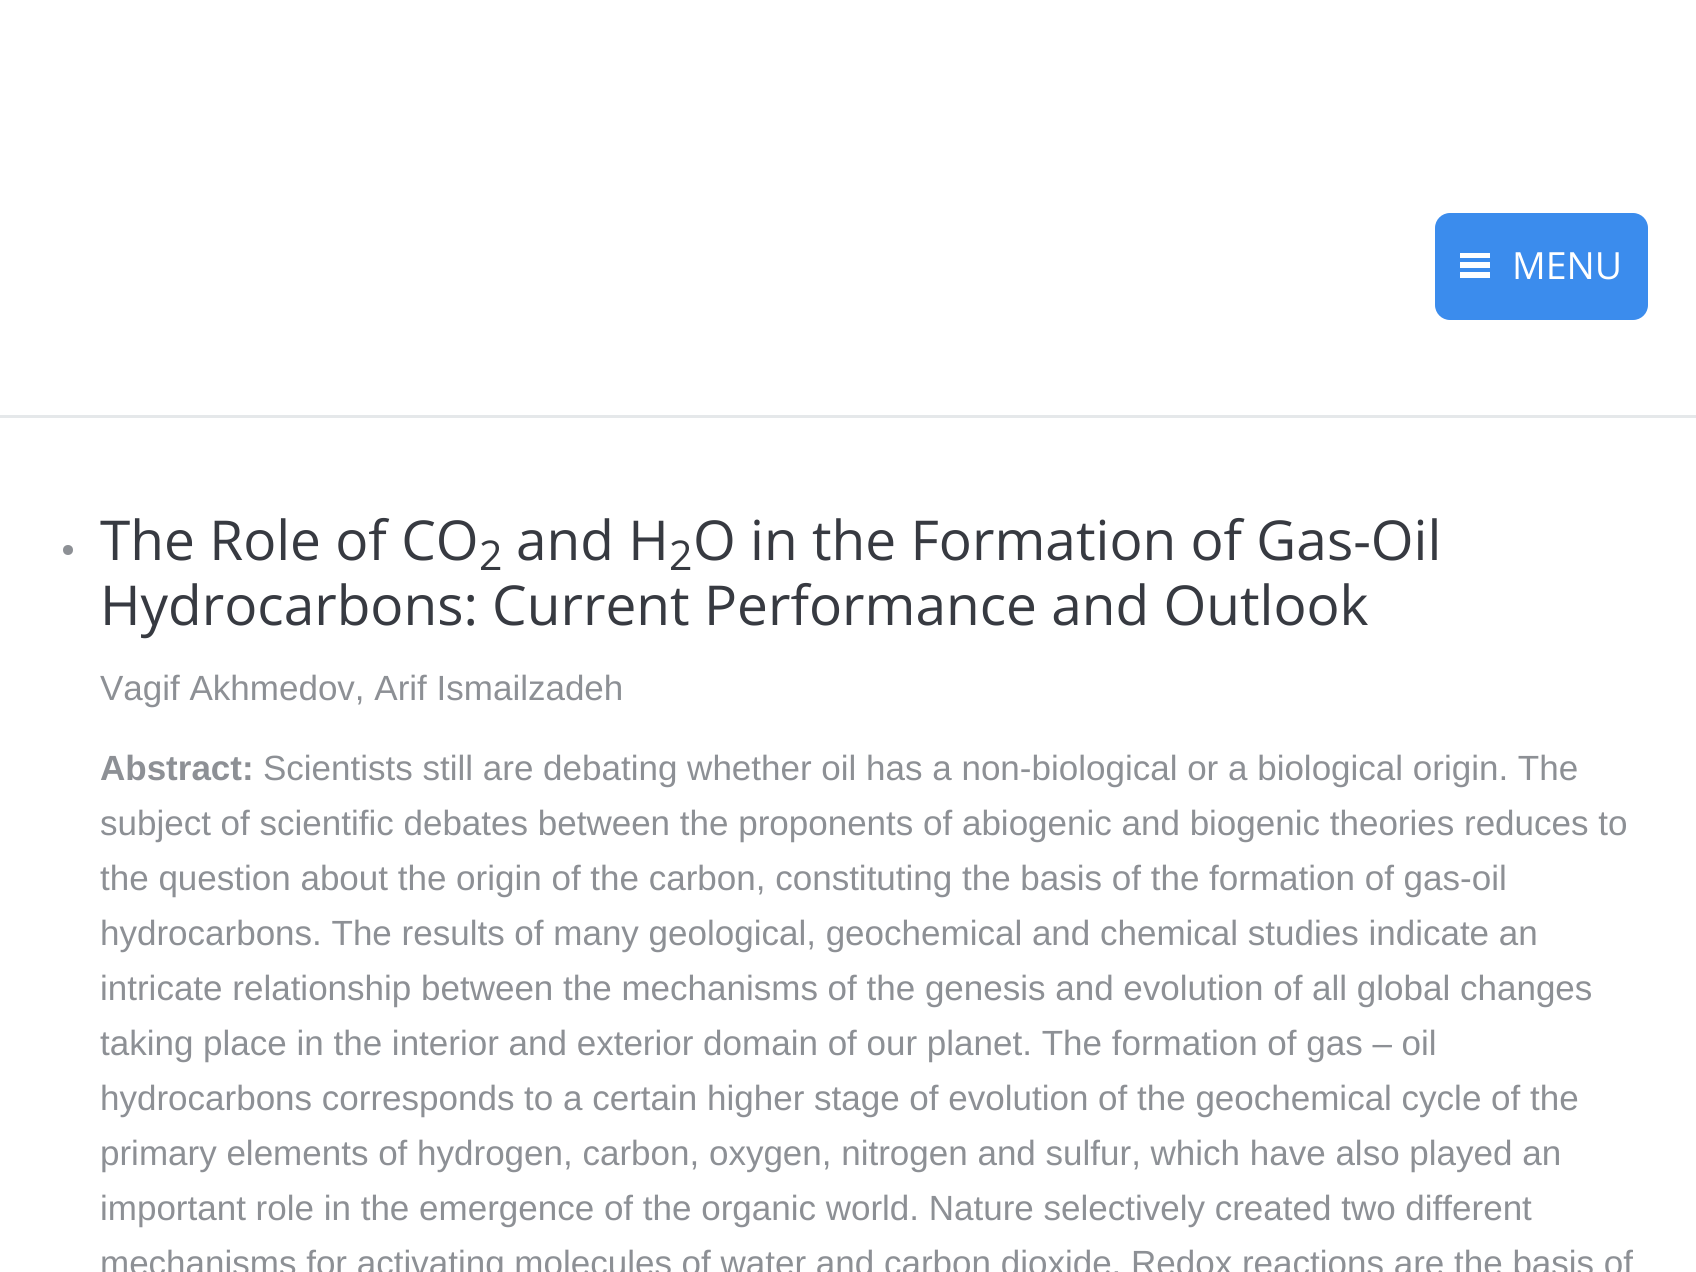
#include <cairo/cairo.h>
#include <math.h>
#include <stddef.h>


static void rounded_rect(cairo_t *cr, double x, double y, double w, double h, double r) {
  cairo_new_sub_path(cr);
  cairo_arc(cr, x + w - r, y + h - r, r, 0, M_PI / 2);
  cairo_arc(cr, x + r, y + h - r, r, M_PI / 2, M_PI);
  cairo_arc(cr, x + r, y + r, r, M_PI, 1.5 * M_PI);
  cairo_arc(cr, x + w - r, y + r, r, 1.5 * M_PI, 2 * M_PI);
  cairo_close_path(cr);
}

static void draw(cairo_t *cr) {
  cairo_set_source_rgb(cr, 1, 1, 1);
  cairo_paint(cr);
  cairo_set_source_rgb(cr, 229 / 255.0, 232 / 255.0, 234 / 255.0);
  cairo_rectangle(cr, 0, 415, 1696, 3);
  cairo_fill(cr);
  cairo_set_source_rgb(cr, 59 / 255.0, 140 / 255.0, 237 / 255.0);
  rounded_rect(cr, 1435, 213, 213, 107, 15);
  cairo_fill(cr);
  cairo_set_source_rgb(cr, 1, 1, 1);
  cairo_rectangle(cr, 1460, 272, 30, 6);
  cairo_fill(cr);
  cairo_rectangle(cr, 1460, 262, 30, 6);
  cairo_fill(cr);
  cairo_rectangle(cr, 1460, 253, 30, 5);
  cairo_fill(cr);
  cairo_set_source_rgb(cr, 141 / 255.0, 144 / 255.0, 149 / 255.0);
  cairo_arc(cr, 68, 550, 5, 0, 2 * M_PI);
  cairo_fill(cr);
  cairo_select_font_face(cr, "Open Sans", CAIRO_FONT_SLANT_NORMAL, CAIRO_FONT_WEIGHT_NORMAL);
  cairo_set_font_size(cr, 37.5);
  cairo_set_source_rgb(cr, 1, 1, 1);
  cairo_move_to(cr, 1512, 279);
  cairo_show_text(cr, "MENU");
  cairo_set_font_size(cr, 55);
  cairo_set_source_rgb(cr, 55 / 255.0, 58 / 255.0, 65 / 255.0);
  cairo_move_to(cr, 100, 560);
  cairo_show_text(cr, "The Role of CO");
  cairo_set_font_size(cr, 41);
  cairo_move_to(cr, 479, 570);
  cairo_show_text(cr, "2");
  cairo_set_font_size(cr, 55);
  cairo_move_to(cr, 516, 560);
  cairo_show_text(cr, "and H");
  cairo_set_font_size(cr, 41);
  cairo_move_to(cr, 669, 570);
  cairo_show_text(cr, "2");
  cairo_set_font_size(cr, 55);
  cairo_move_to(cr, 693, 560);
  cairo_show_text(cr, "O in the Formation of Gas-Oil");
  cairo_move_to(cr, 100, 625);
  cairo_show_text(cr, "Hydrocarbons: Current Performance and Outlook");
  cairo_select_font_face(cr, "Liberation Sans", CAIRO_FONT_SLANT_NORMAL, CAIRO_FONT_WEIGHT_NORMAL);
  cairo_set_font_size(cr, 35);
  cairo_set_source_rgb(cr, 141 / 255.0, 144 / 255.0, 149 / 255.0);
  cairo_move_to(cr, 100, 700);
  cairo_show_text(cr, "Vagif Akhmedov, Arif Ismailzadeh");
  cairo_select_font_face(cr, "Liberation Sans", CAIRO_FONT_SLANT_NORMAL, CAIRO_FONT_WEIGHT_BOLD);
  cairo_move_to(cr, 100, 780);
  cairo_show_text(cr, "Abstract:");
  cairo_select_font_face(cr, "Liberation Sans", CAIRO_FONT_SLANT_NORMAL, CAIRO_FONT_WEIGHT_NORMAL);
  cairo_move_to(cr, 263, 780);
  cairo_show_text(cr, "Scientists still are debating whether oil has a non-biological or a biological origin. The");
  cairo_move_to(cr, 100, 835);
  cairo_show_text(cr, "subject of scientific debates between the proponents of abiogenic and biogenic theories reduces to");
  cairo_move_to(cr, 100, 890);
  cairo_show_text(cr, "the question about the origin of the carbon, constituting the basis of the formation of gas-oil");
  cairo_move_to(cr, 100, 945);
  cairo_show_text(cr, "hydrocarbons. The results of many geological, geochemical and chemical studies indicate an");
  cairo_move_to(cr, 100, 1000);
  cairo_show_text(cr, "intricate relationship between the mechanisms of the genesis and evolution of all global changes");
  cairo_move_to(cr, 100, 1055);
  cairo_show_text(cr, "taking place in the interior and exterior domain of our planet. The formation of gas – oil");
  cairo_move_to(cr, 100, 1110);
  cairo_show_text(cr, "hydrocarbons corresponds to a certain higher stage of evolution of the geochemical cycle of the");
  cairo_move_to(cr, 100, 1165);
  cairo_show_text(cr, "primary elements of hydrogen, carbon, oxygen, nitrogen and sulfur, which have also played an");
  cairo_move_to(cr, 100, 1220);
  cairo_show_text(cr, "important role in the emergence of the organic world. Nature selectively created two different");
  cairo_move_to(cr, 100, 1275);
  cairo_show_text(cr, "mechanisms for activating molecules of water and carbon dioxide. Redox reactions are the basis of");
}

int main(void) {
  cairo_surface_t *surface = cairo_image_surface_create(CAIRO_FORMAT_RGB24, 1696, 1272);
  cairo_t *cr = cairo_create(surface);
  cairo_font_options_t *options = cairo_font_options_create();
  cairo_font_options_set_hint_metrics(options, CAIRO_HINT_METRICS_OFF);
  cairo_font_options_set_hint_style(options, CAIRO_HINT_STYLE_NONE);
  cairo_set_font_options(cr, options);
  cairo_set_miter_limit(cr, 4);
  draw(cr);
  cairo_surface_write_to_png(surface, "out.png");
  cairo_font_options_destroy(options);
  cairo_destroy(cr);
  cairo_surface_destroy(surface);
  return 0;
}
